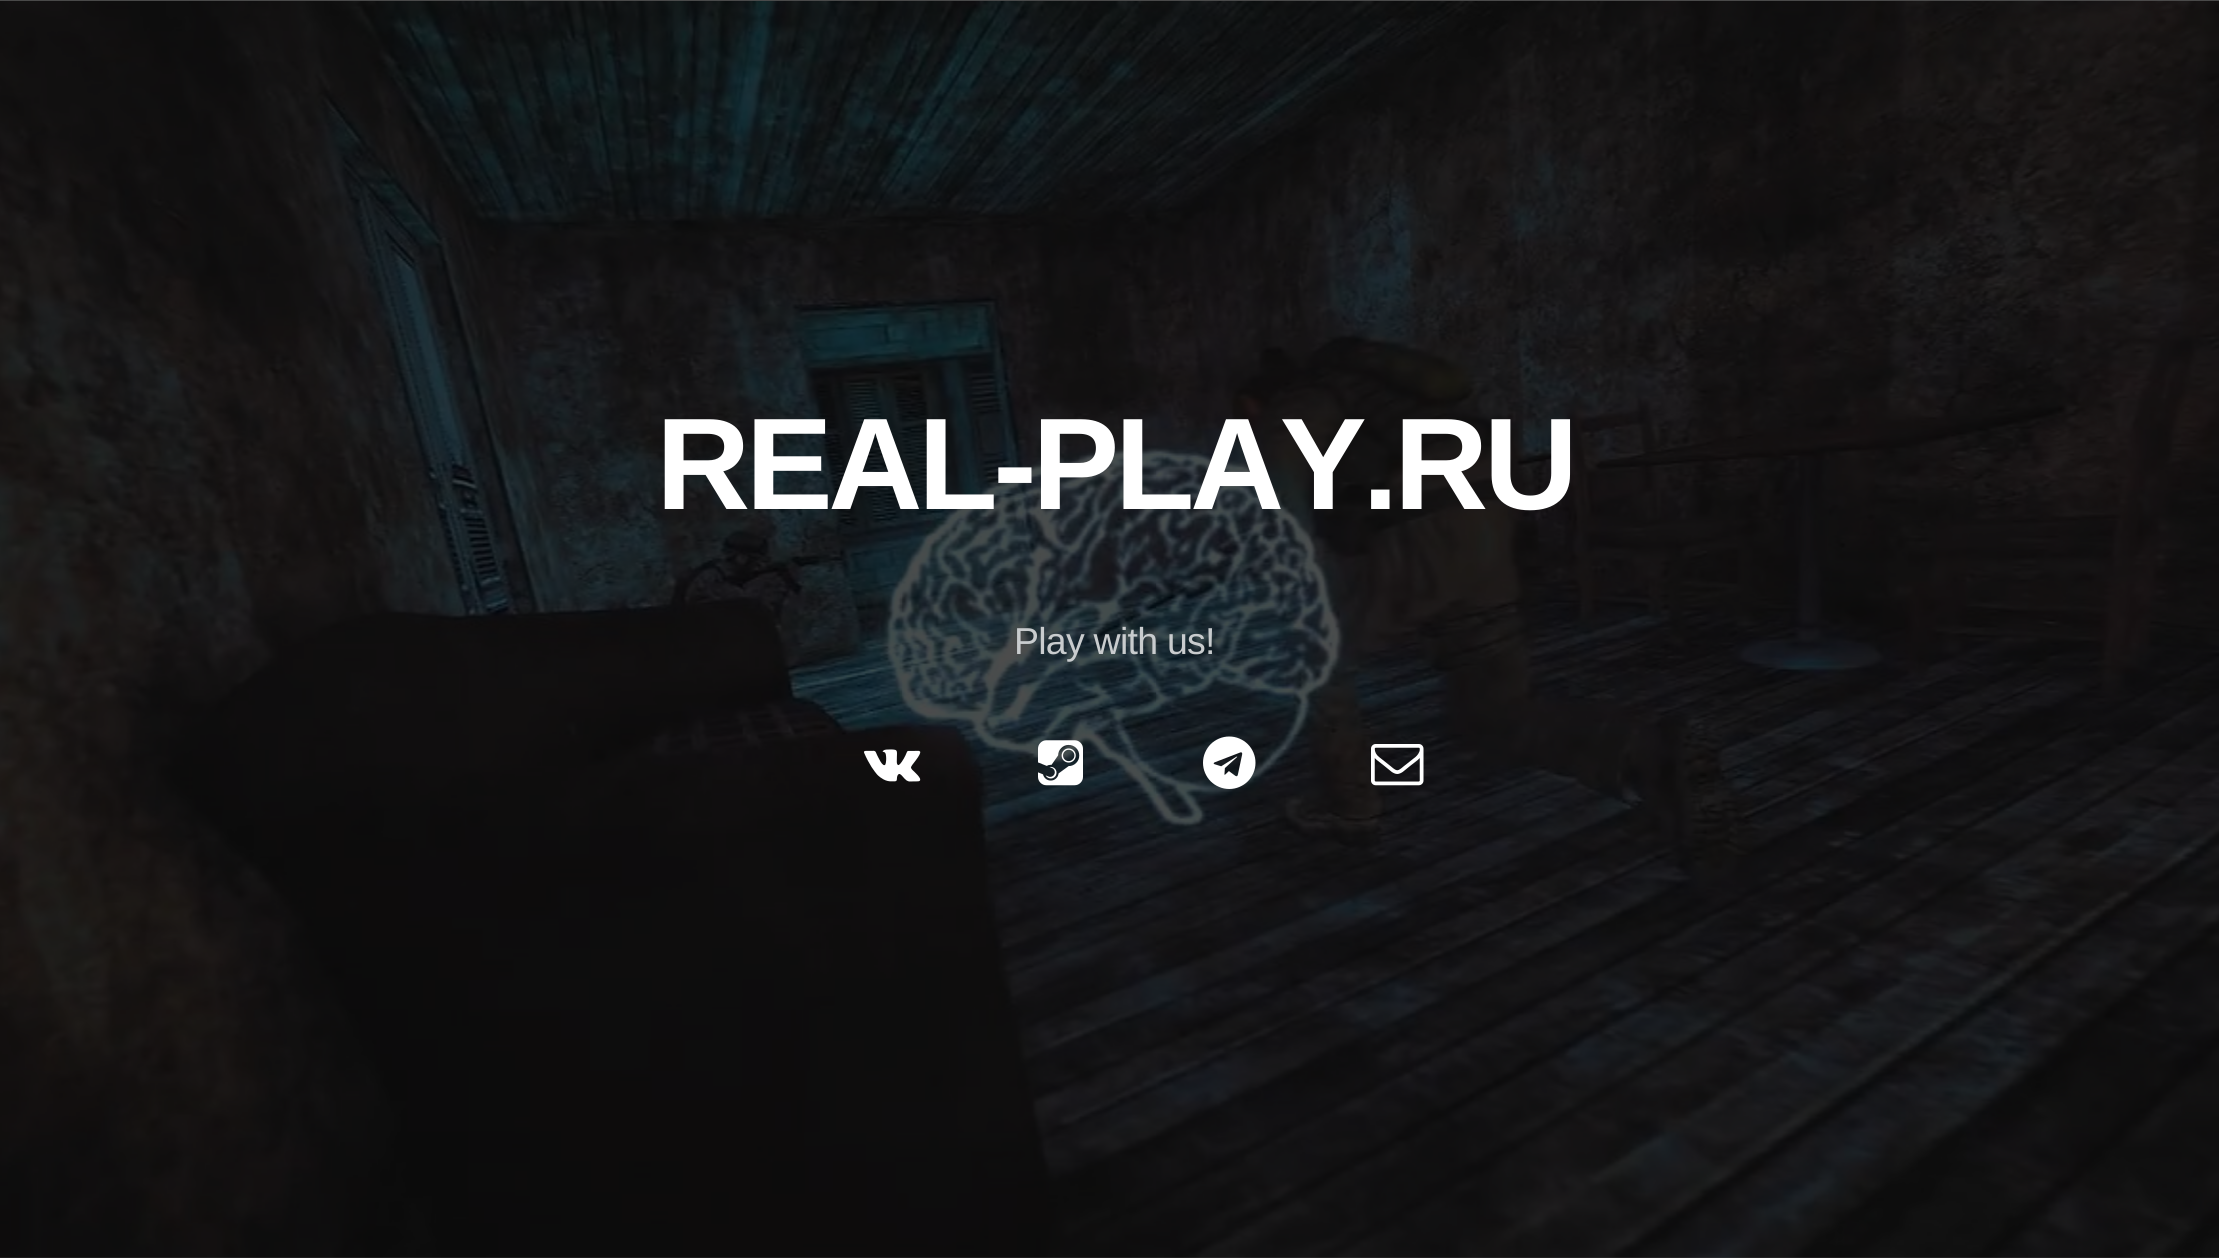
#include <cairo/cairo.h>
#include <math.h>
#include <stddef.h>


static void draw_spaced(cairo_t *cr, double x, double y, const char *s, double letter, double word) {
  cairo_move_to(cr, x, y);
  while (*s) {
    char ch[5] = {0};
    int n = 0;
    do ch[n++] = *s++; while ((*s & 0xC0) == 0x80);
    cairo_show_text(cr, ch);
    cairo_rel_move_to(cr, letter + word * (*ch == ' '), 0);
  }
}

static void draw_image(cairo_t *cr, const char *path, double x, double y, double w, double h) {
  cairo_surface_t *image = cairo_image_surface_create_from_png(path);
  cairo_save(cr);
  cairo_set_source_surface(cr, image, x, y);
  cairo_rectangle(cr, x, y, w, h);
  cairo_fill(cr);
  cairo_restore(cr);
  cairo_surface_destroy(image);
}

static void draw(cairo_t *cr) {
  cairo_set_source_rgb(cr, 77 / 255.0, 77 / 255.0, 77 / 255.0);
  cairo_paint(cr);
  draw_image(cr, "images/1.png", 0, 0, 2219, 1258);
  draw_image(cr, "images/2.png", 864, 749, 57, 33);
  draw_image(cr, "images/3.png", 1038, 740, 45, 46);
  draw_image(cr, "images/4.png", 1203, 736, 53, 53);
  draw_image(cr, "images/5.png", 1371, 744, 53, 42);
  cairo_select_font_face(cr, "Liberation Sans", CAIRO_FONT_SLANT_NORMAL, CAIRO_FONT_WEIGHT_BOLD);
  cairo_set_font_size(cr, 130.5);
  cairo_set_source_rgb(cr, 1, 1, 1);
  draw_spaced(cr, 656, 509, "REAL-PLAY.RU", -4.5, 0);
  cairo_select_font_face(cr, "Liberation Sans", CAIRO_FONT_SLANT_NORMAL, CAIRO_FONT_WEIGHT_NORMAL);
  cairo_set_font_size(cr, 37.5);
  cairo_set_source_rgb(cr, 201 / 255.0, 204 / 255.0, 206 / 255.0);
  draw_spaced(cr, 1014, 654, "Play with us!", -0.75, 0);
}

int main(void) {
  cairo_surface_t *surface = cairo_image_surface_create(CAIRO_FORMAT_RGB24, 2219, 1258);
  cairo_t *cr = cairo_create(surface);
  cairo_font_options_t *options = cairo_font_options_create();
  cairo_font_options_set_hint_metrics(options, CAIRO_HINT_METRICS_OFF);
  cairo_font_options_set_hint_style(options, CAIRO_HINT_STYLE_NONE);
  cairo_set_font_options(cr, options);
  cairo_set_miter_limit(cr, 4);
  draw(cr);
  cairo_surface_write_to_png(surface, "out.png");
  cairo_font_options_destroy(options);
  cairo_destroy(cr);
  cairo_surface_destroy(surface);
  return 0;
}
